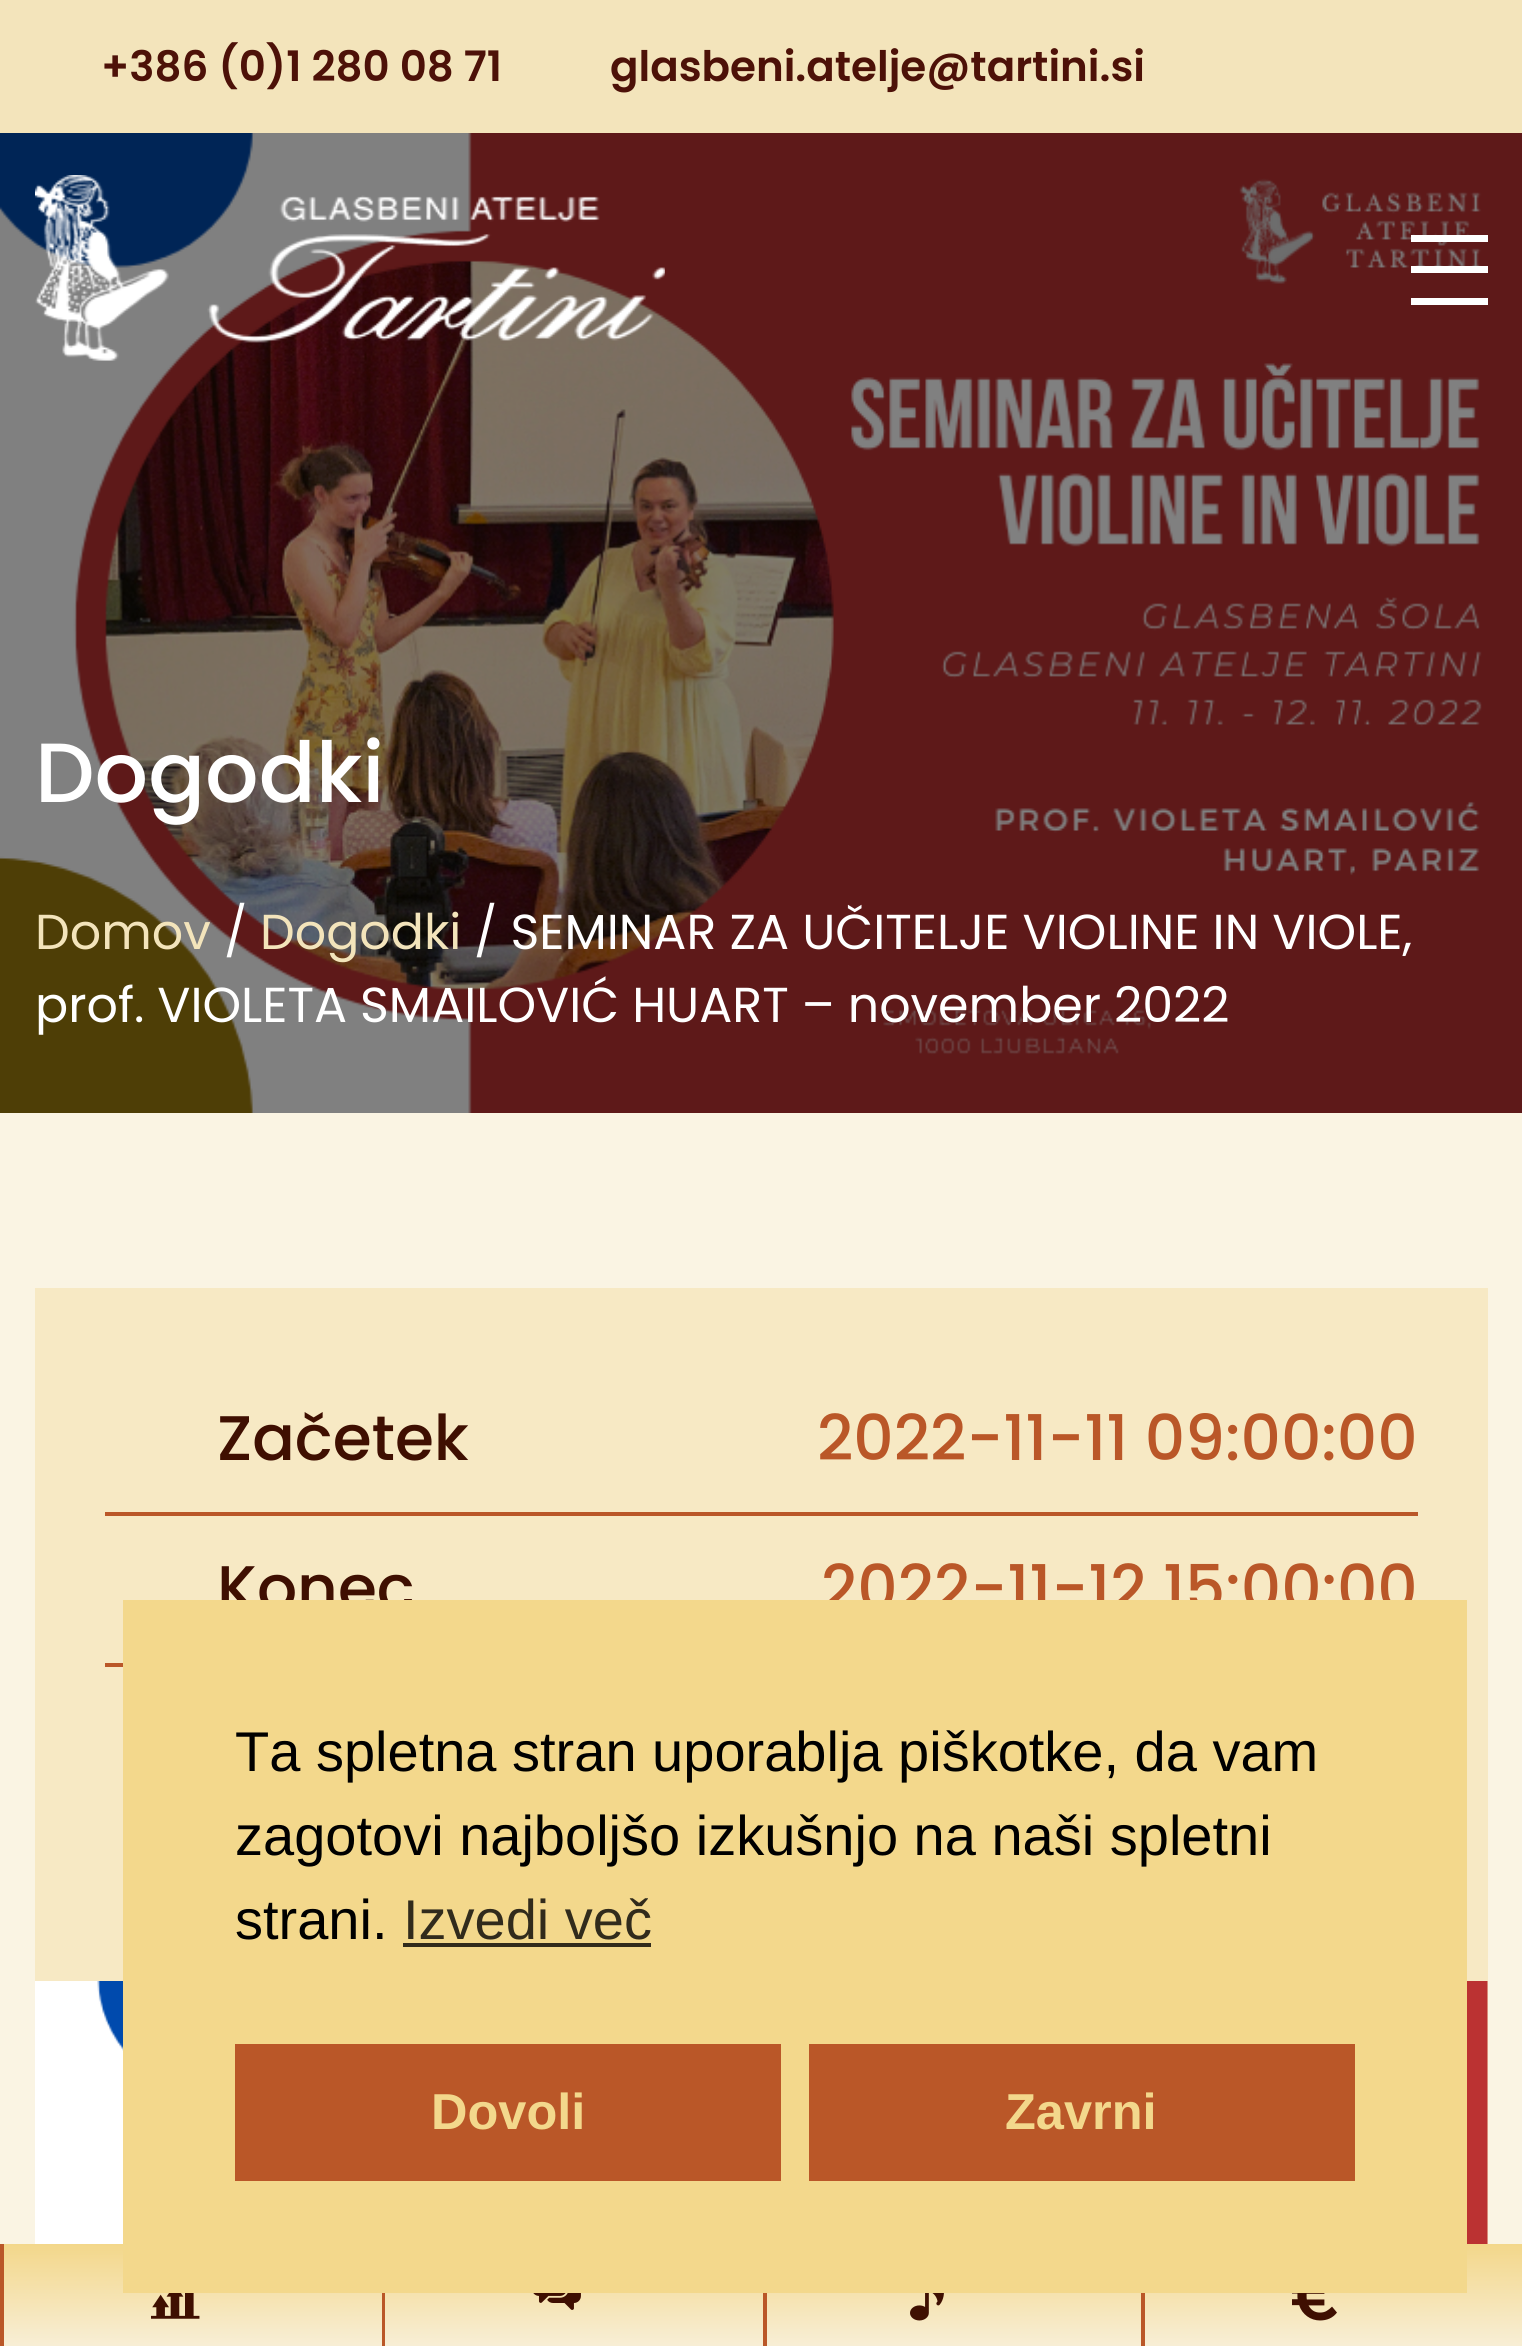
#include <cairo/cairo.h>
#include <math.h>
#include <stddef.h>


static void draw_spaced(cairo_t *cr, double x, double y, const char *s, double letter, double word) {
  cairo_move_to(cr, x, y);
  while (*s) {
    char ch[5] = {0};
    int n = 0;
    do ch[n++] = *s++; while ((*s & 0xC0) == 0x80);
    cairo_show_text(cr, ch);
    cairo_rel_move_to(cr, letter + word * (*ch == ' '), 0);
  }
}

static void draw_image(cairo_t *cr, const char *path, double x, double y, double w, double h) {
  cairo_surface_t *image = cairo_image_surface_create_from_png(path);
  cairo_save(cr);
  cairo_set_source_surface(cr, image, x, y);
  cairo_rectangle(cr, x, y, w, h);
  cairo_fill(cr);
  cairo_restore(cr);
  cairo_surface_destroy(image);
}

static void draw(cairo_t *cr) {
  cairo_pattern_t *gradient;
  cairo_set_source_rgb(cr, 250 / 255.0, 244 / 255.0, 227 / 255.0);
  cairo_paint(cr);
  cairo_set_source_rgb(cr, 243 / 255.0, 228 / 255.0, 187 / 255.0);
  cairo_rectangle(cr, 0, 0, 1522, 133);
  cairo_fill(cr);
  draw_image(cr, "images/2.png", 0, 133, 1522, 980);
  draw_image(cr, "images/1.png", 35, 175, 630, 186);
  cairo_set_source_rgb(cr, 1, 1, 1);
  cairo_rectangle(cr, 1411, 235, 77, 7);
  cairo_fill(cr);
  cairo_rectangle(cr, 1411, 266, 77, 7);
  cairo_fill(cr);
  cairo_rectangle(cr, 1411, 298, 77, 7);
  cairo_fill(cr);
  cairo_set_source_rgb(cr, 247 / 255.0, 233 / 255.0, 196 / 255.0);
  cairo_rectangle(cr, 35, 1288, 1453, 956);
  cairo_fill(cr);
  cairo_set_source_rgb(cr, 186 / 255.0, 87 / 255.0, 40 / 255.0);
  cairo_rectangle(cr, 105, 1512, 1313, 4);
  cairo_fill(cr);
  cairo_rectangle(cr, 105, 1663, 18, 4);
  cairo_fill(cr);
  draw_image(cr, "images/3.png", 35, 1981, 1453, 263);
  cairo_rectangle(cr, 0, 2244, 4, 102);
  cairo_fill(cr);
  gradient = cairo_pattern_create_linear(193, 2244, 193, 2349);
  cairo_pattern_add_color_stop_rgba(gradient, 0, 243 / 255.0, 215 / 255.0, 138 / 255.0, 1);
  cairo_pattern_add_color_stop_rgba(gradient, 1, 248 / 255.0, 239 / 255.0, 216 / 255.0, 1);
  cairo_set_source(cr, gradient);
  cairo_pattern_destroy(gradient);
  cairo_rectangle(cr, 4, 2244, 378, 102);
  cairo_fill(cr);
  draw_image(cr, "images/4.png", 151, 2293, 49, 26);
  cairo_set_source_rgb(cr, 186 / 255.0, 87 / 255.0, 40 / 255.0);
  cairo_rectangle(cr, 382, 2293, 3, 53);
  cairo_fill(cr);
  gradient = cairo_pattern_create_linear(574, 2244, 574, 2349);
  cairo_pattern_add_color_stop_rgba(gradient, 0, 243 / 255.0, 215 / 255.0, 138 / 255.0, 1);
  cairo_pattern_add_color_stop_rgba(gradient, 1, 248 / 255.0, 239 / 255.0, 216 / 255.0, 1);
  cairo_set_source(cr, gradient);
  cairo_pattern_destroy(gradient);
  cairo_rectangle(cr, 385, 2293, 378, 53);
  cairo_fill(cr);
  draw_image(cr, "images/5.png", 533, 2293, 48, 17);
  cairo_set_source_rgb(cr, 186 / 255.0, 87 / 255.0, 40 / 255.0);
  cairo_rectangle(cr, 763, 2293, 4, 53);
  cairo_fill(cr);
  gradient = cairo_pattern_create_linear(954, 2244, 954, 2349);
  cairo_pattern_add_color_stop_rgba(gradient, 0, 243 / 255.0, 215 / 255.0, 138 / 255.0, 1);
  cairo_pattern_add_color_stop_rgba(gradient, 1, 248 / 255.0, 239 / 255.0, 216 / 255.0, 1);
  cairo_set_source(cr, gradient);
  cairo_pattern_destroy(gradient);
  cairo_rectangle(cr, 767, 2293, 374, 53);
  cairo_fill(cr);
  draw_image(cr, "images/6.png", 910, 2293, 34, 28);
  cairo_set_source_rgb(cr, 186 / 255.0, 87 / 255.0, 40 / 255.0);
  cairo_rectangle(cr, 1141, 2293, 4, 53);
  cairo_fill(cr);
  gradient = cairo_pattern_create_linear(1334, 2244, 1334, 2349);
  cairo_pattern_add_color_stop_rgba(gradient, 0, 243 / 255.0, 215 / 255.0, 138 / 255.0, 1);
  cairo_pattern_add_color_stop_rgba(gradient, 1, 248 / 255.0, 239 / 255.0, 216 / 255.0, 1);
  cairo_set_source(cr, gradient);
  cairo_pattern_destroy(gradient);
  cairo_rectangle(cr, 1145, 2244, 377, 102);
  cairo_fill(cr);
  draw_image(cr, "images/7.png", 1292, 2293, 45, 28);
  cairo_select_font_face(cr, "Poppins SemiBold", CAIRO_FONT_SLANT_NORMAL, CAIRO_FONT_WEIGHT_NORMAL);
  cairo_set_font_size(cr, 42);
  cairo_set_source_rgb(cr, 77 / 255.0, 17 / 255.0, 8 / 255.0);
  cairo_move_to(cr, 101, 81);
  cairo_show_text(cr, "+386 (0)1 280 08 71");
  cairo_move_to(cr, 610, 81);
  cairo_show_text(cr, "glasbeni.atelje@tartini.si");
  cairo_select_font_face(cr, "Poppins Medium", CAIRO_FONT_SLANT_NORMAL, CAIRO_FONT_WEIGHT_NORMAL);
  cairo_set_font_size(cr, 84);
  cairo_set_source_rgb(cr, 1, 1, 1);
  cairo_move_to(cr, 35, 802);
  cairo_show_text(cr, "Dogodki");
  cairo_select_font_face(cr, "Poppins", CAIRO_FONT_SLANT_NORMAL, CAIRO_FONT_WEIGHT_NORMAL);
  cairo_set_font_size(cr, 49.1);
  cairo_set_source_rgb(cr, 243 / 255.0, 228 / 255.0, 187 / 255.0);
  cairo_move_to(cr, 35, 949);
  cairo_show_text(cr, "Domov");
  cairo_set_source_rgb(cr, 1, 1, 1);
  cairo_move_to(cr, 224, 949);
  cairo_show_text(cr, "/");
  cairo_set_source_rgb(cr, 243 / 255.0, 228 / 255.0, 187 / 255.0);
  cairo_move_to(cr, 260, 949);
  cairo_show_text(cr, "Dogodki");
  cairo_set_source_rgb(cr, 1, 1, 1);
  cairo_move_to(cr, 474, 949);
  cairo_show_text(cr, "/ SEMINAR ZA UČITELJE VIOLINE IN VIOLE,");
  draw_spaced(cr, 35, 1022, "prof. VIOLETA SMAILOVIĆ HUART – november 2022", 0, -0.25);
  cairo_select_font_face(cr, "Poppins Medium", CAIRO_FONT_SLANT_NORMAL, CAIRO_FONT_WEIGHT_NORMAL);
  cairo_set_font_size(cr, 63);
  cairo_set_source_rgb(cr, 63 / 255.0, 15 / 255.0, 1 / 255.0);
  cairo_move_to(cr, 217, 1460);
  cairo_show_text(cr, "Začetek");
  cairo_set_source_rgb(cr, 186 / 255.0, 87 / 255.0, 40 / 255.0);
  cairo_move_to(cr, 817, 1460);
  cairo_show_text(cr, "2022-11-11 09:00:00");
  cairo_set_source_rgb(cr, 63 / 255.0, 15 / 255.0, 1 / 255.0);
  cairo_move_to(cr, 217, 1610);
  cairo_show_text(cr, "Konec");
  cairo_set_source_rgb(cr, 186 / 255.0, 87 / 255.0, 40 / 255.0);
  cairo_move_to(cr, 821, 1610);
  cairo_show_text(cr, "2022-11-12 15:00:00");
  cairo_set_source_rgb(cr, 243 / 255.0, 216 / 255.0, 140 / 255.0);
  cairo_rectangle(cr, 123, 1600, 1344, 693);
  cairo_fill(cr);
  cairo_select_font_face(cr, "Liberation Sans", CAIRO_FONT_SLANT_NORMAL, CAIRO_FONT_WEIGHT_NORMAL);
  cairo_set_font_size(cr, 56);
  cairo_set_source_rgb(cr, 0, 0, 0);
  cairo_move_to(cr, 235, 1771);
  cairo_show_text(cr, "Ta spletna stran uporablja piškotke, da vam");
  cairo_move_to(cr, 235, 1855);
  cairo_show_text(cr, "zagotovi najboljšo izkušnjo na naši spletni");
  cairo_move_to(cr, 235, 1939);
  cairo_show_text(cr, "strani.");
  cairo_set_source_rgb(cr, 49 / 255.0, 43 / 255.0, 28 / 255.0);
  cairo_move_to(cr, 403, 1939);
  cairo_show_text(cr, "Izvedi več");
  cairo_rectangle(cr, 403, 1943, 248, 4);
  cairo_fill(cr);
  cairo_set_source_rgb(cr, 186 / 255.0, 87 / 255.0, 40 / 255.0);
  cairo_rectangle(cr, 235, 2044, 546, 137);
  cairo_fill(cr);
  cairo_select_font_face(cr, "Liberation Sans", CAIRO_FONT_SLANT_NORMAL, CAIRO_FONT_WEIGHT_BOLD);
  cairo_set_font_size(cr, 50.5);
  cairo_set_source_rgb(cr, 243 / 255.0, 216 / 255.0, 140 / 255.0);
  cairo_move_to(cr, 431, 2129);
  cairo_show_text(cr, "Dovoli");
  cairo_set_source_rgb(cr, 186 / 255.0, 87 / 255.0, 40 / 255.0);
  cairo_rectangle(cr, 809, 2044, 546, 137);
  cairo_fill(cr);
  cairo_set_source_rgb(cr, 243 / 255.0, 216 / 255.0, 140 / 255.0);
  cairo_move_to(cr, 1005, 2129);
  cairo_show_text(cr, "Zavrni");
}

int main(void) {
  cairo_surface_t *surface = cairo_image_surface_create(CAIRO_FORMAT_RGB24, 1522, 2346);
  cairo_t *cr = cairo_create(surface);
  cairo_font_options_t *options = cairo_font_options_create();
  cairo_font_options_set_hint_metrics(options, CAIRO_HINT_METRICS_OFF);
  cairo_font_options_set_hint_style(options, CAIRO_HINT_STYLE_NONE);
  cairo_set_font_options(cr, options);
  cairo_set_miter_limit(cr, 4);
  draw(cr);
  cairo_surface_write_to_png(surface, "out.png");
  cairo_font_options_destroy(options);
  cairo_destroy(cr);
  cairo_surface_destroy(surface);
  return 0;
}
